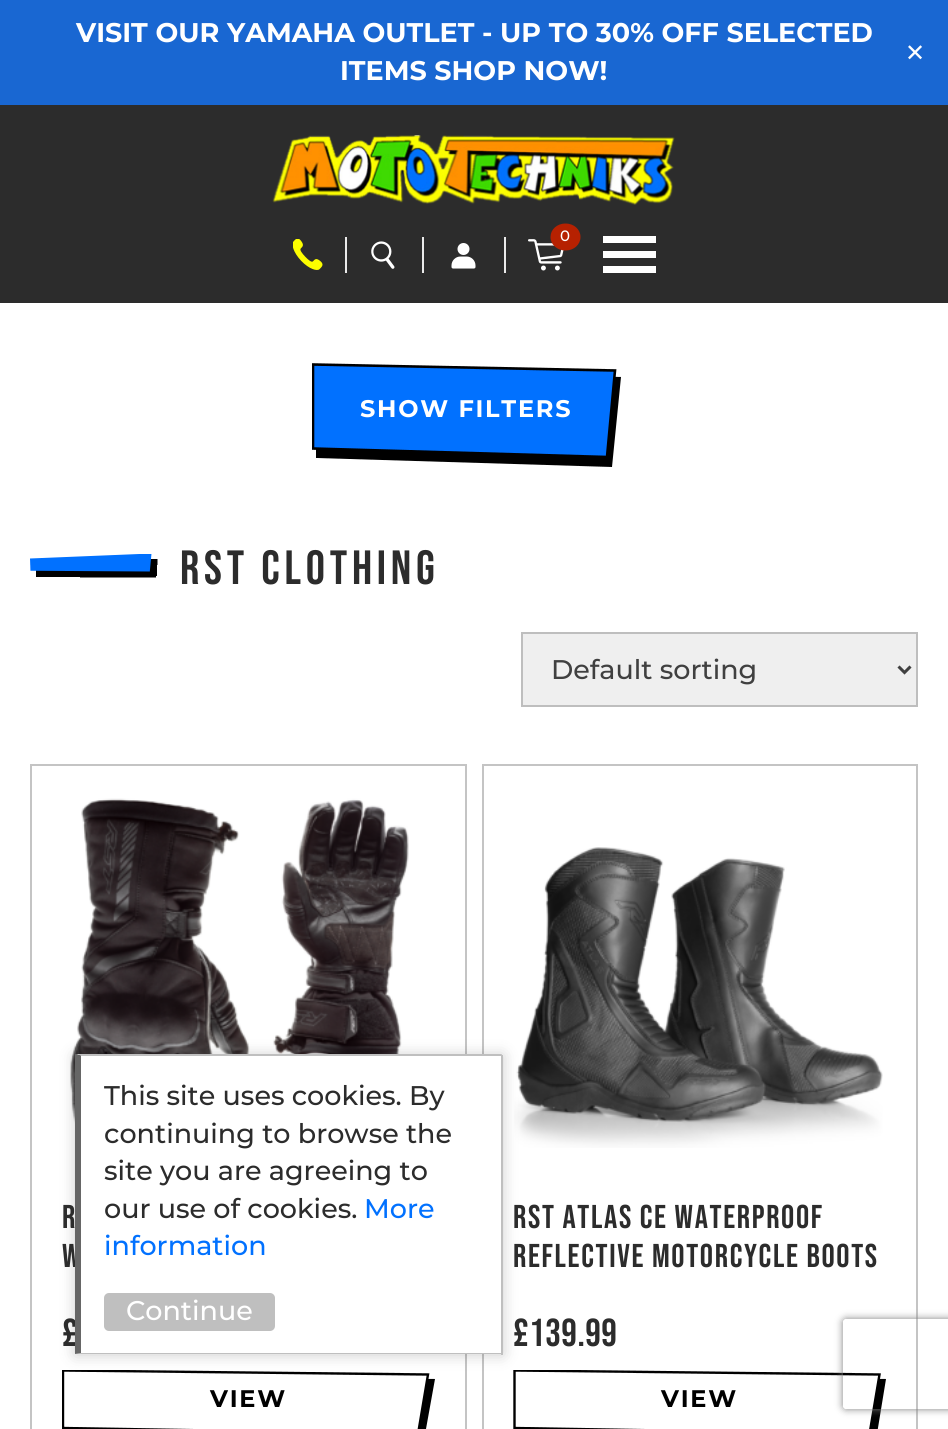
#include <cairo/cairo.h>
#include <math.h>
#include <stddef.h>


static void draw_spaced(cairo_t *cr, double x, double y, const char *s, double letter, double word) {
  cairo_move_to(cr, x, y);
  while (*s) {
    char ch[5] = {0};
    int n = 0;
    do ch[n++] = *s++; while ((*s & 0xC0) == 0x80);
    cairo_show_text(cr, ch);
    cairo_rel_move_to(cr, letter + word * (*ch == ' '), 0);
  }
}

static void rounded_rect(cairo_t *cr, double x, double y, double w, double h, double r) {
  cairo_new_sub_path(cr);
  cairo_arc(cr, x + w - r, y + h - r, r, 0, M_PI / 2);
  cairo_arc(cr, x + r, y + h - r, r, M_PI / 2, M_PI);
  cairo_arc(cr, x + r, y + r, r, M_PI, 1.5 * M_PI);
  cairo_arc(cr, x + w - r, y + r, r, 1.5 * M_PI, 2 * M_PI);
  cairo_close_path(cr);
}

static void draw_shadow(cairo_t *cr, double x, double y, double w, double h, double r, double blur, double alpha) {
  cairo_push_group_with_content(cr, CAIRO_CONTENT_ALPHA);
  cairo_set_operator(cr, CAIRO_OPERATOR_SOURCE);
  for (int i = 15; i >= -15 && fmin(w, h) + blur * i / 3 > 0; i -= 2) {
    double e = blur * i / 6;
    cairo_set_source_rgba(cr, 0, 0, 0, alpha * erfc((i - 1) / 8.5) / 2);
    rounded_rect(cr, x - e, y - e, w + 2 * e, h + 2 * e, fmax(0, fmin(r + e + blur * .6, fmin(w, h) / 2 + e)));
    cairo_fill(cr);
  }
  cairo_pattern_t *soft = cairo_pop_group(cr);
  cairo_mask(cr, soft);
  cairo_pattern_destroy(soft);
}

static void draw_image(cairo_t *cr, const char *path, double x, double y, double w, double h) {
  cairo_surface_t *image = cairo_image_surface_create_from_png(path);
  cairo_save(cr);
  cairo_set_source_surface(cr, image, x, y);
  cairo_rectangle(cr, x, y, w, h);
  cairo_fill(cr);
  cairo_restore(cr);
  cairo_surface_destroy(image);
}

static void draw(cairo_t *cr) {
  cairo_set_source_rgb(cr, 1, 1, 1);
  cairo_paint(cr);
  cairo_set_source_rgb(cr, 25 / 255.0, 103 / 255.0, 210 / 255.0);
  cairo_rectangle(cr, 0, 0, 948, 105);
  cairo_fill(cr);
  cairo_set_source_rgb(cr, 44 / 255.0, 44 / 255.0, 44 / 255.0);
  cairo_rectangle(cr, 0, 105, 948, 198);
  cairo_fill(cr);
  draw_image(cr, "images/1.png", 272, 135, 403, 70);
  draw_image(cr, "images/2.png", 293, 239, 30, 31);
  cairo_set_source_rgb(cr, 234 / 255.0, 234 / 255.0, 234 / 255.0);
  cairo_rectangle(cr, 345, 237, 2, 36);
  cairo_fill(cr);
  draw_image(cr, "images/3.png", 371, 241, 24, 28);
  cairo_rectangle(cr, 422, 237, 2, 36);
  cairo_fill(cr);
  draw_image(cr, "images/4.png", 451, 243, 25, 26);
  cairo_rectangle(cr, 504, 237, 2, 36);
  cairo_fill(cr);
  draw_image(cr, "images/5.png", 528, 239, 36, 32);
  cairo_set_source_rgb(cr, 182 / 255.0, 33 / 255.0, 1 / 255.0);
  cairo_new_path(cr);
  cairo_move_to(cr, 565.5, 223.5);
  cairo_curve_to(cr, 574, 223.5, 580.5, 229.5, 580.5, 237);
  cairo_curve_to(cr, 580.5, 244.5, 574, 250.5, 565.5, 250.5);
  cairo_curve_to(cr, 557, 250.5, 550.5, 244.5, 550.5, 237);
  cairo_curve_to(cr, 550.5, 229.5, 557, 223.5, 565.5, 223.5);
  cairo_close_path(cr);
  cairo_fill(cr);
  cairo_set_source_rgb(cr, 1, 1, 1);
  cairo_rectangle(cr, 603, 236, 53, 7);
  cairo_fill(cr);
  cairo_rectangle(cr, 603, 251, 53, 7);
  cairo_fill(cr);
  cairo_rectangle(cr, 603, 266, 53, 7);
  cairo_fill(cr);
  cairo_set_source_rgb(cr, 0, 0, 0);
  cairo_new_path(cr);
  cairo_move_to(cr, 316, 371);
  cairo_line_to(cr, 621, 377);
  cairo_line_to(cr, 612, 467);
  cairo_line_to(cr, 316, 458);
  cairo_close_path(cr);
  cairo_fill(cr);
  cairo_set_source_rgb(cr, 1 / 255.0, 113 / 255.0, 1);
  cairo_new_path(cr);
  cairo_move_to(cr, 313, 448);
  cairo_line_to(cr, 313, 365);
  cairo_line_to(cr, 615, 370);
  cairo_line_to(cr, 607, 457);
  cairo_close_path(cr);
  cairo_fill(cr);
  cairo_save(cr);
  cairo_rectangle(cr, 312, 363, 309, 105);
  cairo_clip(cr);
  cairo_new_path(cr);
  cairo_move_to(cr, 313, 448.5);
  cairo_line_to(cr, 313, 364.5);
  cairo_line_to(cr, 615, 370.5);
  cairo_line_to(cr, 607, 457);
  cairo_close_path(cr);
  cairo_set_source_rgb(cr, 0, 0, 0);
  cairo_set_line_width(cr, 2.6);
  cairo_stroke(cr);
  cairo_restore(cr);
  draw_image(cr, "images/6.png", 30, 554, 128, 24);
  cairo_set_source_rgb(cr, 239 / 255.0, 239 / 255.0, 239 / 255.0);
  cairo_rectangle(cr, 522, 633, 395, 73);
  cairo_fill_preserve(cr);
  cairo_set_source_rgb(cr, 190 / 255.0, 190 / 255.0, 190 / 255.0);
  cairo_stroke(cr);
  cairo_new_path(cr);
  cairo_move_to(cr, 898.5, 666.5);
  cairo_line_to(cr, 904.5, 672.5);
  cairo_line_to(cr, 910.5, 666.5);
  cairo_set_source_rgb(cr, 64 / 255.0, 64 / 255.0, 64 / 255.0);
  cairo_set_line_width(cr, 3);
  cairo_stroke(cr);
  cairo_rectangle(cr, 31, 765, 435, 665);
  cairo_set_source_rgb(cr, 196 / 255.0, 196 / 255.0, 196 / 255.0);
  cairo_set_line_width(cr, 2);
  cairo_stroke(cr);
  draw_image(cr, "images/7.png", 70, 798, 339, 366);
  cairo_set_source_rgb(cr, 0, 0, 0);
  cairo_new_path(cr);
  cairo_move_to(cr, 67, 1375);
  cairo_line_to(cr, 435, 1379);
  cairo_line_to(cr, 424, 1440);
  cairo_line_to(cr, 67, 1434);
  cairo_close_path(cr);
  cairo_fill(cr);
  cairo_set_source_rgb(cr, 1, 1, 1);
  cairo_new_path(cr);
  cairo_move_to(cr, 63, 1428);
  cairo_line_to(cr, 63, 1371);
  cairo_line_to(cr, 428, 1375);
  cairo_line_to(cr, 418, 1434);
  cairo_close_path(cr);
  cairo_fill(cr);
  cairo_save(cr);
  cairo_rectangle(cr, 62, 1370, 373, 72);
  cairo_clip(cr);
  cairo_new_path(cr);
  cairo_move_to(cr, 63, 1428);
  cairo_line_to(cr, 63, 1370.5);
  cairo_line_to(cr, 428, 1374.5);
  cairo_line_to(cr, 418, 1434);
  cairo_close_path(cr);
  cairo_set_source_rgb(cr, 0, 0, 0);
  cairo_set_line_width(cr, 2.4);
  cairo_stroke(cr);
  cairo_restore(cr);
  cairo_rectangle(cr, 483, 765, 434, 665);
  cairo_set_source_rgb(cr, 196 / 255.0, 196 / 255.0, 196 / 255.0);
  cairo_stroke(cr);
  draw_image(cr, "images/8.png", 514, 847, 369, 301);
  cairo_set_source_rgb(cr, 0, 0, 0);
  cairo_new_path(cr);
  cairo_move_to(cr, 518, 1375);
  cairo_line_to(cr, 886, 1379);
  cairo_line_to(cr, 876, 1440);
  cairo_line_to(cr, 518, 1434);
  cairo_close_path(cr);
  cairo_fill(cr);
  cairo_set_source_rgb(cr, 1, 1, 1);
  cairo_new_path(cr);
  cairo_move_to(cr, 514, 1428);
  cairo_line_to(cr, 514, 1371);
  cairo_line_to(cr, 879, 1375);
  cairo_line_to(cr, 869, 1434);
  cairo_close_path(cr);
  cairo_fill(cr);
  cairo_save(cr);
  cairo_rectangle(cr, 513, 1370, 374, 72);
  cairo_clip(cr);
  cairo_new_path(cr);
  cairo_move_to(cr, 514.5, 1428);
  cairo_line_to(cr, 514.5, 1370.5);
  cairo_line_to(cr, 879.5, 1374.5);
  cairo_line_to(cr, 869.5, 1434);
  cairo_close_path(cr);
  cairo_set_source_rgb(cr, 0, 0, 0);
  cairo_set_line_width(cr, 2.4);
  cairo_stroke(cr);
  cairo_restore(cr);
  cairo_set_source_rgb(cr, 0, 0, 0);
  draw_shadow(cr, 75, 1055, 428, 300, 0, 7.5, 0.2);
  cairo_set_source_rgb(cr, 1, 1, 1);
  cairo_rectangle(cr, 81, 1056, 420, 297);
  cairo_fill(cr);
  cairo_set_source_rgb(cr, 191 / 255.0, 191 / 255.0, 191 / 255.0);
  cairo_new_path(cr);
  cairo_move_to(cr, 75, 1054);
  cairo_line_to(cr, 502, 1054);
  cairo_line_to(cr, 501, 1056);
  cairo_line_to(cr, 81, 1056);
  cairo_close_path(cr);
  cairo_fill(cr);
  cairo_rectangle(cr, 501, 1055, 2, 300);
  cairo_fill(cr);
  cairo_new_path(cr);
  cairo_move_to(cr, 502, 1354);
  cairo_line_to(cr, 75, 1354);
  cairo_line_to(cr, 81, 1353);
  cairo_line_to(cr, 501, 1353);
  cairo_close_path(cr);
  cairo_fill(cr);
  rounded_rect(cr, 104, 1293, 171, 38, 5);
  cairo_fill(cr);
  cairo_save(cr);
  cairo_set_fill_rule(cr, CAIRO_FILL_RULE_EVEN_ODD);
  cairo_new_path(cr);
  cairo_move_to(cr, 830, 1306);
  cairo_line_to(cr, 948, 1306);
  cairo_line_to(cr, 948, 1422);
  cairo_line_to(cr, 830, 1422);
  cairo_close_path(cr);
  cairo_move_to(cr, 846, 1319);
  cairo_line_to(cr, 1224, 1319);
  cairo_curve_to(cr, 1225.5, 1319, 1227, 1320.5, 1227, 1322);
  cairo_line_to(cr, 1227, 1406);
  cairo_curve_to(cr, 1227, 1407.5, 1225.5, 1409, 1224, 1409);
  cairo_line_to(cr, 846, 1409);
  cairo_curve_to(cr, 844.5, 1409, 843, 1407.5, 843, 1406);
  cairo_line_to(cr, 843, 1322);
  cairo_curve_to(cr, 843, 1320.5, 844.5, 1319, 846, 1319);
  cairo_close_path(cr);
  cairo_clip(cr);
  cairo_set_source_rgb(cr, 128 / 255.0, 128 / 255.0, 128 / 255.0);
  draw_shadow(cr, 843, 1319, 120, 90, 3, 4, 1);
  cairo_restore(cr);
  cairo_select_font_face(cr, "Montserrat", CAIRO_FONT_SLANT_NORMAL, CAIRO_FONT_WEIGHT_BOLD);
  cairo_set_font_size(cr, 27);
  cairo_set_source_rgb(cr, 1, 1, 1);
  cairo_move_to(cr, 76, 42);
  cairo_show_text(cr, "VISIT OUR YAMAHA OUTLET - UP TO 30% OFF SELECTED");
  cairo_move_to(cr, 340, 80);
  cairo_show_text(cr, "ITEMS SHOP NOW!");
  cairo_select_font_face(cr, "DejaVu Sans", CAIRO_FONT_SLANT_NORMAL, CAIRO_FONT_WEIGHT_NORMAL);
  cairo_set_font_size(cr, 24);
  cairo_move_to(cr, 905, 61);
  cairo_show_text(cr, "✕");
  cairo_select_font_face(cr, "Montserrat Medium", CAIRO_FONT_SLANT_NORMAL, CAIRO_FONT_WEIGHT_NORMAL);
  cairo_set_font_size(cr, 15);
  cairo_move_to(cr, 560, 241);
  cairo_show_text(cr, "0");
  cairo_select_font_face(cr, "Montserrat", CAIRO_FONT_SLANT_NORMAL, CAIRO_FONT_WEIGHT_BOLD);
  cairo_set_font_size(cr, 24);
  draw_spaced(cr, 360, 417, "SHOW FILTERS", 1.75, 0);
  cairo_select_font_face(cr, "Bebas Neue", CAIRO_FONT_SLANT_NORMAL, CAIRO_FONT_WEIGHT_NORMAL);
  cairo_set_font_size(cr, 48);
  cairo_set_source_rgb(cr, 44 / 255.0, 44 / 255.0, 44 / 255.0);
  draw_spaced(cr, 180, 584, "RST CLOTHING", 4.75, 0);
  cairo_select_font_face(cr, "Montserrat Medium", CAIRO_FONT_SLANT_NORMAL, CAIRO_FONT_WEIGHT_NORMAL);
  cairo_set_font_size(cr, 27);
  cairo_set_source_rgb(cr, 64 / 255.0, 64 / 255.0, 64 / 255.0);
  cairo_move_to(cr, 551, 679);
  cairo_show_text(cr, "Default sorting");
  cairo_select_font_face(cr, "Bebas Neue", CAIRO_FONT_SLANT_NORMAL, CAIRO_FONT_WEIGHT_NORMAL);
  cairo_set_font_size(cr, 33);
  cairo_set_source_rgb(cr, 44 / 255.0, 44 / 255.0, 44 / 255.0);
  draw_spaced(cr, 62, 1228, "R", 1.65, 0);
  draw_spaced(cr, 62, 1267, "W", 1.65, 0);
  cairo_set_font_size(cr, 39);
  draw_spaced(cr, 62, 1346, "£", 0.5, 0);
  cairo_select_font_face(cr, "Montserrat", CAIRO_FONT_SLANT_NORMAL, CAIRO_FONT_WEIGHT_BOLD);
  cairo_set_font_size(cr, 24);
  cairo_set_source_rgb(cr, 0, 0, 0);
  draw_spaced(cr, 210, 1407, "VIEW", 1.75, 0);
  cairo_select_font_face(cr, "Bebas Neue", CAIRO_FONT_SLANT_NORMAL, CAIRO_FONT_WEIGHT_NORMAL);
  cairo_set_font_size(cr, 33);
  cairo_set_source_rgb(cr, 44 / 255.0, 44 / 255.0, 44 / 255.0);
  draw_spaced(cr, 513, 1228, "RST ATLAS CE WATERPROOF", 1.65, 0);
  draw_spaced(cr, 513, 1267, "REFLECTIVE MOTORCYCLE BOOTS", 1.65, 0);
  cairo_set_font_size(cr, 39);
  draw_spaced(cr, 513, 1346, "£139.99", 0.5, 0);
  cairo_select_font_face(cr, "Montserrat", CAIRO_FONT_SLANT_NORMAL, CAIRO_FONT_WEIGHT_BOLD);
  cairo_set_font_size(cr, 24);
  cairo_set_source_rgb(cr, 0, 0, 0);
  draw_spaced(cr, 661, 1407, "VIEW", 1.75, 0);
  cairo_set_source_rgb(cr, 102 / 255.0, 102 / 255.0, 102 / 255.0);
  cairo_new_path(cr);
  cairo_move_to(cr, 75, 1354);
  cairo_line_to(cr, 75, 1054);
  cairo_line_to(cr, 81, 1056);
  cairo_line_to(cr, 81, 1353);
  cairo_close_path(cr);
  cairo_fill(cr);
  cairo_select_font_face(cr, "Montserrat Medium", CAIRO_FONT_SLANT_NORMAL, CAIRO_FONT_WEIGHT_NORMAL);
  cairo_set_font_size(cr, 27);
  cairo_set_source_rgb(cr, 44 / 255.0, 44 / 255.0, 44 / 255.0);
  cairo_move_to(cr, 104, 1105);
  cairo_show_text(cr, "This site uses cookies. By");
  cairo_move_to(cr, 104, 1143);
  cairo_show_text(cr, "continuing to browse the");
  cairo_move_to(cr, 104, 1180);
  cairo_show_text(cr, "site you are agreeing to");
  cairo_move_to(cr, 104, 1218);
  cairo_show_text(cr, "our use of cookies.");
  cairo_set_source_rgb(cr, 1 / 255.0, 113 / 255.0, 1);
  cairo_move_to(cr, 364, 1218);
  cairo_show_text(cr, "More");
  cairo_move_to(cr, 104, 1255);
  cairo_show_text(cr, "information");
  cairo_set_source_rgb(cr, 1, 1, 1);
  cairo_move_to(cr, 126, 1320);
  cairo_show_text(cr, "Continue");
}

int main(void) {
  cairo_surface_t *surface = cairo_image_surface_create(CAIRO_FORMAT_RGB24, 948, 1429);
  cairo_t *cr = cairo_create(surface);
  cairo_font_options_t *options = cairo_font_options_create();
  cairo_font_options_set_hint_metrics(options, CAIRO_HINT_METRICS_OFF);
  cairo_font_options_set_hint_style(options, CAIRO_HINT_STYLE_NONE);
  cairo_set_font_options(cr, options);
  cairo_set_miter_limit(cr, 4);
  draw(cr);
  cairo_surface_write_to_png(surface, "out.png");
  cairo_font_options_destroy(options);
  cairo_destroy(cr);
  cairo_surface_destroy(surface);
  return 0;
}
